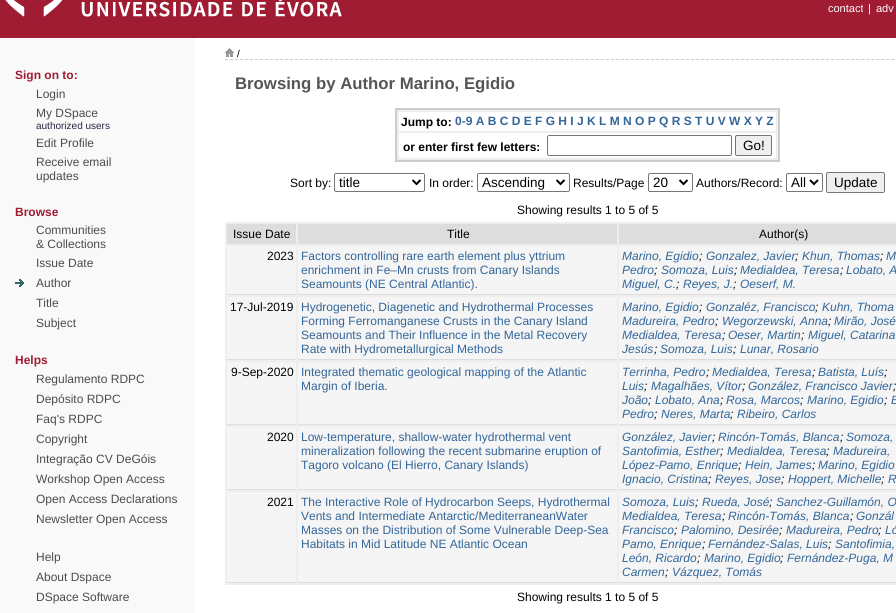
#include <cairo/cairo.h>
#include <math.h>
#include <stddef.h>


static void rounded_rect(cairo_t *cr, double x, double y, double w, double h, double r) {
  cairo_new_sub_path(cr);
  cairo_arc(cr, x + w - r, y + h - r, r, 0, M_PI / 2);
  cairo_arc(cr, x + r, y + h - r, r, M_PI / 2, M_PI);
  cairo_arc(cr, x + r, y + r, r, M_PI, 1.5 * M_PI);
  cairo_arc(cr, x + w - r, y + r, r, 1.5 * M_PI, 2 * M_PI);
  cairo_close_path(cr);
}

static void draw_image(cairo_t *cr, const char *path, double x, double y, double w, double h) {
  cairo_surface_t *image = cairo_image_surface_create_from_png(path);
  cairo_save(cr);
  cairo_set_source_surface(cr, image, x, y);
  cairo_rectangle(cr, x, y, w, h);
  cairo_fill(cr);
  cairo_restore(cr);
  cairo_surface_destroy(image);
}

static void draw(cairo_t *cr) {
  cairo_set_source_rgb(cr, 1, 1, 1);
  cairo_paint(cr);
  cairo_set_source_rgb(cr, 159 / 255.0, 28 / 255.0, 51 / 255.0);
  cairo_rectangle(cr, 0, 0, 896, 38);
  cairo_fill(cr);
  draw_image(cr, "images/1.png", 5, 0, 337, 17);
  cairo_set_source_rgb(cr, 249 / 255.0, 249 / 255.0, 249 / 255.0);
  cairo_rectangle(cr, 0, 38, 195, 575);
  cairo_fill(cr);
  draw_image(cr, "images/2.png", 15, 279, 9, 8);
  cairo_new_path(cr);
  cairo_move_to(cr, 225, 59.5);
  cairo_line_to(cr, 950, 59.5);
  cairo_set_source_rgb(cr, 204 / 255.0, 204 / 255.0, 204 / 255.0);
  cairo_set_line_width(cr, 1);
  cairo_set_dash(cr, (double[]){3, 2.01}, 2, 0);
  cairo_stroke(cr);
  draw_image(cr, "images/3.png", 225, 48, 9, 9);
  cairo_rectangle(cr, 395, 108, 385, 54);
  cairo_fill(cr);
  cairo_set_source_rgb(cr, 238 / 255.0, 238 / 255.0, 238 / 255.0);
  cairo_rectangle(cr, 397, 110, 381, 50);
  cairo_fill(cr);
  cairo_set_source_rgb(cr, 1, 1, 1);
  cairo_rectangle(cr, 399, 112, 377, 19);
  cairo_fill(cr);
  cairo_rectangle(cr, 399, 133, 377, 25);
  cairo_fill(cr);
  rounded_rect(cr, 547.5, 135.5, 184, 20, 1.5);
  cairo_set_source_rgb(cr, 118 / 255.0, 118 / 255.0, 118 / 255.0);
  cairo_set_dash(cr, NULL, 0, 0);
  cairo_stroke(cr);
  cairo_set_source_rgb(cr, 239 / 255.0, 239 / 255.0, 239 / 255.0);
  rounded_rect(cr, 735.5, 135.5, 36, 20, 1.5);
  cairo_fill_preserve(cr);
  cairo_set_source_rgb(cr, 118 / 255.0, 118 / 255.0, 118 / 255.0);
  cairo_stroke(cr);
  rounded_rect(cr, 334.5, 173.5, 90, 18, 1.5);
  cairo_stroke(cr);
  cairo_new_path(cr);
  cairo_move_to(cr, 412.5, 180);
  cairo_line_to(cr, 416.5, 184);
  cairo_line_to(cr, 420.5, 180);
  cairo_set_source_rgb(cr, 0, 0, 0);
  cairo_set_line_width(cr, 2);
  cairo_stroke(cr);
  rounded_rect(cr, 477.5, 173.5, 92, 18, 1.5);
  cairo_set_source_rgb(cr, 118 / 255.0, 118 / 255.0, 118 / 255.0);
  cairo_set_line_width(cr, 1);
  cairo_stroke(cr);
  cairo_new_path(cr);
  cairo_move_to(cr, 556.5, 180);
  cairo_line_to(cr, 560.5, 184);
  cairo_line_to(cr, 564.5, 180);
  cairo_set_source_rgb(cr, 0, 0, 0);
  cairo_set_line_width(cr, 2);
  cairo_stroke(cr);
  rounded_rect(cr, 648.5, 173.5, 44, 18, 1.5);
  cairo_set_source_rgb(cr, 118 / 255.0, 118 / 255.0, 118 / 255.0);
  cairo_set_line_width(cr, 1);
  cairo_stroke(cr);
  cairo_new_path(cr);
  cairo_move_to(cr, 679.5, 180);
  cairo_line_to(cr, 683.5, 184);
  cairo_line_to(cr, 687.5, 180);
  cairo_set_source_rgb(cr, 0, 0, 0);
  cairo_set_line_width(cr, 2);
  cairo_stroke(cr);
  rounded_rect(cr, 786.5, 173.5, 36, 18, 1.5);
  cairo_set_source_rgb(cr, 118 / 255.0, 118 / 255.0, 118 / 255.0);
  cairo_set_line_width(cr, 1);
  cairo_stroke(cr);
  cairo_new_path(cr);
  cairo_move_to(cr, 810, 180);
  cairo_line_to(cr, 814, 184);
  cairo_line_to(cr, 818, 180);
  cairo_set_source_rgb(cr, 0, 0, 0);
  cairo_set_line_width(cr, 2);
  cairo_stroke(cr);
  cairo_set_source_rgb(cr, 239 / 255.0, 239 / 255.0, 239 / 255.0);
  rounded_rect(cr, 826.5, 172.5, 58, 20, 1.5);
  cairo_fill_preserve(cr);
  cairo_set_source_rgb(cr, 118 / 255.0, 118 / 255.0, 118 / 255.0);
  cairo_set_line_width(cr, 1);
  cairo_stroke(cr);
  cairo_set_source_rgb(cr, 238 / 255.0, 238 / 255.0, 238 / 255.0);
  cairo_rectangle(cr, 225, 222, 671, 363);
  cairo_fill(cr);
  cairo_set_source_rgb(cr, 221 / 255.0, 221 / 255.0, 221 / 255.0);
  cairo_rectangle(cr, 227, 224, 69, 20);
  cairo_fill(cr);
  cairo_rectangle(cr, 298, 224, 319, 20);
  cairo_fill(cr);
  cairo_rectangle(cr, 619, 224, 277, 20);
  cairo_fill(cr);
  cairo_set_source_rgb(cr, 245 / 255.0, 245 / 255.0, 245 / 255.0);
  cairo_rectangle(cr, 227, 246, 69, 48);
  cairo_fill(cr);
  cairo_set_source_rgb(cr, 221 / 255.0, 221 / 255.0, 221 / 255.0);
  cairo_rectangle(cr, 227, 294, 69, 1);
  cairo_fill(cr);
  cairo_set_source_rgb(cr, 245 / 255.0, 245 / 255.0, 245 / 255.0);
  cairo_rectangle(cr, 298, 246, 319, 48);
  cairo_fill(cr);
  cairo_set_source_rgb(cr, 221 / 255.0, 221 / 255.0, 221 / 255.0);
  cairo_rectangle(cr, 298, 294, 319, 1);
  cairo_fill(cr);
  cairo_set_source_rgb(cr, 245 / 255.0, 245 / 255.0, 245 / 255.0);
  cairo_rectangle(cr, 619, 246, 277, 48);
  cairo_fill(cr);
  cairo_set_source_rgb(cr, 221 / 255.0, 221 / 255.0, 221 / 255.0);
  cairo_rectangle(cr, 619, 294, 277, 1);
  cairo_fill(cr);
  cairo_set_source_rgb(cr, 245 / 255.0, 245 / 255.0, 245 / 255.0);
  cairo_rectangle(cr, 227, 297, 69, 62);
  cairo_fill(cr);
  cairo_set_source_rgb(cr, 221 / 255.0, 221 / 255.0, 221 / 255.0);
  cairo_rectangle(cr, 227, 359, 69, 1);
  cairo_fill(cr);
  cairo_set_source_rgb(cr, 245 / 255.0, 245 / 255.0, 245 / 255.0);
  cairo_rectangle(cr, 298, 297, 319, 62);
  cairo_fill(cr);
  cairo_set_source_rgb(cr, 221 / 255.0, 221 / 255.0, 221 / 255.0);
  cairo_rectangle(cr, 298, 359, 319, 1);
  cairo_fill(cr);
  cairo_set_source_rgb(cr, 245 / 255.0, 245 / 255.0, 245 / 255.0);
  cairo_rectangle(cr, 619, 297, 277, 62);
  cairo_fill(cr);
  cairo_set_source_rgb(cr, 221 / 255.0, 221 / 255.0, 221 / 255.0);
  cairo_rectangle(cr, 619, 359, 277, 1);
  cairo_fill(cr);
  cairo_set_source_rgb(cr, 245 / 255.0, 245 / 255.0, 245 / 255.0);
  cairo_rectangle(cr, 227, 362, 69, 62);
  cairo_fill(cr);
  cairo_set_source_rgb(cr, 221 / 255.0, 221 / 255.0, 221 / 255.0);
  cairo_rectangle(cr, 227, 424, 69, 1);
  cairo_fill(cr);
  cairo_set_source_rgb(cr, 245 / 255.0, 245 / 255.0, 245 / 255.0);
  cairo_rectangle(cr, 298, 362, 319, 62);
  cairo_fill(cr);
  cairo_set_source_rgb(cr, 221 / 255.0, 221 / 255.0, 221 / 255.0);
  cairo_rectangle(cr, 298, 424, 319, 1);
  cairo_fill(cr);
  cairo_set_source_rgb(cr, 245 / 255.0, 245 / 255.0, 245 / 255.0);
  cairo_rectangle(cr, 619, 362, 277, 62);
  cairo_fill(cr);
  cairo_set_source_rgb(cr, 221 / 255.0, 221 / 255.0, 221 / 255.0);
  cairo_rectangle(cr, 619, 424, 277, 1);
  cairo_fill(cr);
  cairo_set_source_rgb(cr, 245 / 255.0, 245 / 255.0, 245 / 255.0);
  cairo_rectangle(cr, 227, 427, 69, 62);
  cairo_fill(cr);
  cairo_set_source_rgb(cr, 221 / 255.0, 221 / 255.0, 221 / 255.0);
  cairo_rectangle(cr, 227, 489, 69, 1);
  cairo_fill(cr);
  cairo_set_source_rgb(cr, 245 / 255.0, 245 / 255.0, 245 / 255.0);
  cairo_rectangle(cr, 298, 427, 319, 62);
  cairo_fill(cr);
  cairo_set_source_rgb(cr, 221 / 255.0, 221 / 255.0, 221 / 255.0);
  cairo_rectangle(cr, 298, 489, 319, 1);
  cairo_fill(cr);
  cairo_set_source_rgb(cr, 245 / 255.0, 245 / 255.0, 245 / 255.0);
  cairo_rectangle(cr, 619, 427, 277, 62);
  cairo_fill(cr);
  cairo_set_source_rgb(cr, 221 / 255.0, 221 / 255.0, 221 / 255.0);
  cairo_rectangle(cr, 619, 489, 277, 1);
  cairo_fill(cr);
  cairo_set_source_rgb(cr, 245 / 255.0, 245 / 255.0, 245 / 255.0);
  cairo_rectangle(cr, 227, 492, 69, 90);
  cairo_fill(cr);
  cairo_set_source_rgb(cr, 221 / 255.0, 221 / 255.0, 221 / 255.0);
  cairo_rectangle(cr, 227, 582, 69, 1);
  cairo_fill(cr);
  cairo_set_source_rgb(cr, 245 / 255.0, 245 / 255.0, 245 / 255.0);
  cairo_rectangle(cr, 298, 492, 319, 90);
  cairo_fill(cr);
  cairo_set_source_rgb(cr, 221 / 255.0, 221 / 255.0, 221 / 255.0);
  cairo_rectangle(cr, 298, 582, 319, 1);
  cairo_fill(cr);
  cairo_set_source_rgb(cr, 245 / 255.0, 245 / 255.0, 245 / 255.0);
  cairo_rectangle(cr, 619, 492, 277, 90);
  cairo_fill(cr);
  cairo_set_source_rgb(cr, 221 / 255.0, 221 / 255.0, 221 / 255.0);
  cairo_rectangle(cr, 619, 582, 277, 1);
  cairo_fill(cr);
  cairo_select_font_face(cr, "Liberation Sans", CAIRO_FONT_SLANT_NORMAL, CAIRO_FONT_WEIGHT_NORMAL);
  cairo_set_font_size(cr, 11);
  cairo_set_source_rgb(cr, 1, 1, 1);
  cairo_move_to(cr, 828, 12);
  cairo_show_text(cr, "contact");
  cairo_move_to(cr, 868, 12);
  cairo_show_text(cr, "|");
  cairo_move_to(cr, 876, 12);
  cairo_show_text(cr, "adv");
  cairo_select_font_face(cr, "Liberation Sans", CAIRO_FONT_SLANT_NORMAL, CAIRO_FONT_WEIGHT_BOLD);
  cairo_set_font_size(cr, 12);
  cairo_set_source_rgb(cr, 159 / 255.0, 28 / 255.0, 51 / 255.0);
  cairo_move_to(cr, 15, 79);
  cairo_show_text(cr, "Sign on to:");
  cairo_select_font_face(cr, "Liberation Sans", CAIRO_FONT_SLANT_NORMAL, CAIRO_FONT_WEIGHT_NORMAL);
  cairo_set_source_rgb(cr, 76 / 255.0, 76 / 255.0, 76 / 255.0);
  cairo_move_to(cr, 36, 98);
  cairo_show_text(cr, "Login");
  cairo_move_to(cr, 36, 117);
  cairo_show_text(cr, "My DSpace");
  cairo_set_font_size(cr, 10);
  cairo_set_source_rgb(cr, 37 / 255.0, 38 / 255.0, 69 / 255.0);
  cairo_move_to(cr, 36, 129);
  cairo_show_text(cr, "authorized users");
  cairo_set_font_size(cr, 12);
  cairo_set_source_rgb(cr, 76 / 255.0, 76 / 255.0, 76 / 255.0);
  cairo_move_to(cr, 36, 147);
  cairo_show_text(cr, "Edit Profile");
  cairo_move_to(cr, 36, 166);
  cairo_show_text(cr, "Receive email");
  cairo_move_to(cr, 36, 180);
  cairo_show_text(cr, "updates");
  cairo_select_font_face(cr, "Liberation Sans", CAIRO_FONT_SLANT_NORMAL, CAIRO_FONT_WEIGHT_BOLD);
  cairo_set_source_rgb(cr, 159 / 255.0, 28 / 255.0, 51 / 255.0);
  cairo_move_to(cr, 15, 216);
  cairo_show_text(cr, "Browse");
  cairo_select_font_face(cr, "Liberation Sans", CAIRO_FONT_SLANT_NORMAL, CAIRO_FONT_WEIGHT_NORMAL);
  cairo_set_source_rgb(cr, 76 / 255.0, 76 / 255.0, 76 / 255.0);
  cairo_move_to(cr, 36, 234);
  cairo_show_text(cr, "Communities");
  cairo_move_to(cr, 36, 248);
  cairo_show_text(cr, "& Collections");
  cairo_move_to(cr, 36, 267);
  cairo_show_text(cr, "Issue Date");
  cairo_move_to(cr, 36, 287);
  cairo_show_text(cr, "Author");
  cairo_move_to(cr, 36, 307);
  cairo_show_text(cr, "Title");
  cairo_move_to(cr, 36, 327);
  cairo_show_text(cr, "Subject");
  cairo_select_font_face(cr, "Liberation Sans", CAIRO_FONT_SLANT_NORMAL, CAIRO_FONT_WEIGHT_BOLD);
  cairo_set_source_rgb(cr, 159 / 255.0, 28 / 255.0, 51 / 255.0);
  cairo_move_to(cr, 15, 364);
  cairo_show_text(cr, "Helps");
  cairo_select_font_face(cr, "Liberation Sans", CAIRO_FONT_SLANT_NORMAL, CAIRO_FONT_WEIGHT_NORMAL);
  cairo_set_source_rgb(cr, 76 / 255.0, 76 / 255.0, 76 / 255.0);
  cairo_move_to(cr, 36, 383);
  cairo_show_text(cr, "Regulamento RDPC");
  cairo_move_to(cr, 36, 403);
  cairo_show_text(cr, "Depósito RDPC");
  cairo_move_to(cr, 36, 423);
  cairo_show_text(cr, "Faq's RDPC");
  cairo_move_to(cr, 36, 443);
  cairo_show_text(cr, "Copyright");
  cairo_move_to(cr, 36, 463);
  cairo_show_text(cr, "Integração CV DeGóis");
  cairo_move_to(cr, 36, 483);
  cairo_show_text(cr, "Workshop Open Access");
  cairo_move_to(cr, 36, 503);
  cairo_show_text(cr, "Open Access Declarations");
  cairo_move_to(cr, 36, 523);
  cairo_show_text(cr, "Newsletter Open Access");
  cairo_move_to(cr, 36, 561);
  cairo_show_text(cr, "Help");
  cairo_move_to(cr, 36, 581);
  cairo_show_text(cr, "About Dspace");
  cairo_move_to(cr, 36, 601);
  cairo_show_text(cr, "DSpace Software");
  cairo_set_font_size(cr, 10);
  cairo_set_source_rgb(cr, 0, 0, 0);
  cairo_move_to(cr, 237, 57);
  cairo_show_text(cr, "/");
  cairo_select_font_face(cr, "Liberation Sans", CAIRO_FONT_SLANT_NORMAL, CAIRO_FONT_WEIGHT_BOLD);
  cairo_set_font_size(cr, 16.75);
  cairo_set_source_rgb(cr, 85 / 255.0, 85 / 255.0, 85 / 255.0);
  cairo_move_to(cr, 235, 89);
  cairo_show_text(cr, "Browsing by Author Marino, Egidio");
  cairo_set_font_size(cr, 12);
  cairo_set_source_rgb(cr, 0, 0, 0);
  cairo_move_to(cr, 401, 126);
  cairo_show_text(cr, "Jump to:");
  cairo_set_source_rgb(cr, 51 / 255.0, 102 / 255.0, 153 / 255.0);
  cairo_move_to(cr, 455, 125);
  cairo_show_text(cr, "0-9 A B C D E F G H I J K L M N O P Q R S T U V W X Y Z");
  cairo_set_source_rgb(cr, 0, 0, 0);
  cairo_move_to(cr, 403, 151);
  cairo_show_text(cr, "or enter first few letters:");
  cairo_select_font_face(cr, "Liberation Sans", CAIRO_FONT_SLANT_NORMAL, CAIRO_FONT_WEIGHT_NORMAL);
  cairo_set_font_size(cr, 13.5);
  cairo_move_to(cr, 743, 150);
  cairo_show_text(cr, "Go!");
  cairo_set_font_size(cr, 12);
  cairo_move_to(cr, 290, 187);
  cairo_show_text(cr, "Sort by:");
  cairo_set_font_size(cr, 13.5);
  cairo_move_to(cr, 339, 187);
  cairo_show_text(cr, "title");
  cairo_set_font_size(cr, 12);
  cairo_move_to(cr, 429, 187);
  cairo_show_text(cr, "In order:");
  cairo_set_font_size(cr, 13.5);
  cairo_move_to(cr, 482, 187);
  cairo_show_text(cr, "Ascending");
  cairo_set_font_size(cr, 12);
  cairo_move_to(cr, 573, 187);
  cairo_show_text(cr, "Results/Page");
  cairo_set_font_size(cr, 13.5);
  cairo_move_to(cr, 653, 187);
  cairo_show_text(cr, "20");
  cairo_set_font_size(cr, 12);
  cairo_move_to(cr, 696, 187);
  cairo_show_text(cr, "Authors/Record:");
  cairo_set_font_size(cr, 13.5);
  cairo_move_to(cr, 791, 187);
  cairo_show_text(cr, "All");
  cairo_move_to(cr, 834, 187);
  cairo_show_text(cr, "Update");
  cairo_set_font_size(cr, 12);
  cairo_move_to(cr, 517, 214);
  cairo_show_text(cr, "Showing results 1 to 5 of 5");
  cairo_move_to(cr, 233, 238);
  cairo_show_text(cr, "Issue Date");
  cairo_move_to(cr, 447, 238);
  cairo_show_text(cr, "Title");
  cairo_move_to(cr, 759, 238);
  cairo_show_text(cr, "Author(s)");
  cairo_move_to(cr, 267, 260);
  cairo_show_text(cr, "2023");
  cairo_set_source_rgb(cr, 51 / 255.0, 102 / 255.0, 153 / 255.0);
  cairo_move_to(cr, 301, 260);
  cairo_show_text(cr, "Factors controlling rare earth element plus yttrium");
  cairo_move_to(cr, 301, 274);
  cairo_show_text(cr, "enrichment in Fe–Mn crusts from Canary Islands");
  cairo_move_to(cr, 301, 288);
  cairo_show_text(cr, "Seamounts (NE Central Atlantic).");
  cairo_select_font_face(cr, "Liberation Sans", CAIRO_FONT_SLANT_ITALIC, CAIRO_FONT_WEIGHT_NORMAL);
  cairo_move_to(cr, 622, 260);
  cairo_show_text(cr, "Marino, Egidio");
  cairo_set_source_rgb(cr, 0, 0, 0);
  cairo_move_to(cr, 699, 260);
  cairo_show_text(cr, ";");
  cairo_set_source_rgb(cr, 51 / 255.0, 102 / 255.0, 153 / 255.0);
  cairo_move_to(cr, 706, 260);
  cairo_show_text(cr, "Gonzalez, Javier");
  cairo_set_source_rgb(cr, 0, 0, 0);
  cairo_move_to(cr, 795, 260);
  cairo_show_text(cr, ";");
  cairo_set_source_rgb(cr, 51 / 255.0, 102 / 255.0, 153 / 255.0);
  cairo_move_to(cr, 802, 260);
  cairo_show_text(cr, "Khun, Thomas");
  cairo_set_source_rgb(cr, 0, 0, 0);
  cairo_move_to(cr, 880, 260);
  cairo_show_text(cr, ";");
  cairo_set_source_rgb(cr, 51 / 255.0, 102 / 255.0, 153 / 255.0);
  cairo_move_to(cr, 886, 260);
  cairo_show_text(cr, "M");
  cairo_move_to(cr, 622, 274);
  cairo_show_text(cr, "Pedro");
  cairo_set_source_rgb(cr, 0, 0, 0);
  cairo_move_to(cr, 654, 274);
  cairo_show_text(cr, ";");
  cairo_set_source_rgb(cr, 51 / 255.0, 102 / 255.0, 153 / 255.0);
  cairo_move_to(cr, 661, 274);
  cairo_show_text(cr, "Somoza, Luis");
  cairo_set_source_rgb(cr, 0, 0, 0);
  cairo_move_to(cr, 734, 274);
  cairo_show_text(cr, ";");
  cairo_set_source_rgb(cr, 51 / 255.0, 102 / 255.0, 153 / 255.0);
  cairo_move_to(cr, 740, 274);
  cairo_show_text(cr, "Medialdea, Teresa");
  cairo_set_source_rgb(cr, 0, 0, 0);
  cairo_move_to(cr, 840, 274);
  cairo_show_text(cr, ";");
  cairo_set_source_rgb(cr, 51 / 255.0, 102 / 255.0, 153 / 255.0);
  cairo_move_to(cr, 846, 274);
  cairo_show_text(cr, "Lobato, A");
  cairo_move_to(cr, 622, 288);
  cairo_show_text(cr, "Miguel, C.");
  cairo_set_source_rgb(cr, 0, 0, 0);
  cairo_move_to(cr, 676, 288);
  cairo_show_text(cr, ";");
  cairo_set_source_rgb(cr, 51 / 255.0, 102 / 255.0, 153 / 255.0);
  cairo_move_to(cr, 683, 288);
  cairo_show_text(cr, "Reyes, J.");
  cairo_set_source_rgb(cr, 0, 0, 0);
  cairo_move_to(cr, 733, 288);
  cairo_show_text(cr, ";");
  cairo_set_source_rgb(cr, 51 / 255.0, 102 / 255.0, 153 / 255.0);
  cairo_move_to(cr, 740, 288);
  cairo_show_text(cr, "Oeserf, M.");
  cairo_select_font_face(cr, "Liberation Sans", CAIRO_FONT_SLANT_NORMAL, CAIRO_FONT_WEIGHT_NORMAL);
  cairo_set_source_rgb(cr, 0, 0, 0);
  cairo_move_to(cr, 230, 311);
  cairo_show_text(cr, "17-Jul-2019");
  cairo_set_source_rgb(cr, 51 / 255.0, 102 / 255.0, 153 / 255.0);
  cairo_move_to(cr, 301, 311);
  cairo_show_text(cr, "Hydrogenetic, Diagenetic and Hydrothermal Processes");
  cairo_move_to(cr, 301, 325);
  cairo_show_text(cr, "Forming Ferromanganese Crusts in the Canary Island");
  cairo_move_to(cr, 301, 339);
  cairo_show_text(cr, "Seamounts and Their Influence in the Metal Recovery");
  cairo_move_to(cr, 301, 353);
  cairo_show_text(cr, "Rate with Hydrometallurgical Methods");
  cairo_select_font_face(cr, "Liberation Sans", CAIRO_FONT_SLANT_ITALIC, CAIRO_FONT_WEIGHT_NORMAL);
  cairo_move_to(cr, 622, 311);
  cairo_show_text(cr, "Marino, Egidio");
  cairo_set_source_rgb(cr, 0, 0, 0);
  cairo_move_to(cr, 699, 311);
  cairo_show_text(cr, ";");
  cairo_set_source_rgb(cr, 51 / 255.0, 102 / 255.0, 153 / 255.0);
  cairo_move_to(cr, 706, 311);
  cairo_show_text(cr, "Gonzaléz, Francisco");
  cairo_set_source_rgb(cr, 0, 0, 0);
  cairo_move_to(cr, 815, 311);
  cairo_show_text(cr, ";");
  cairo_set_source_rgb(cr, 51 / 255.0, 102 / 255.0, 153 / 255.0);
  cairo_move_to(cr, 822, 311);
  cairo_show_text(cr, "Kuhn, Thoma");
  cairo_move_to(cr, 622, 325);
  cairo_show_text(cr, "Madureira, Pedro");
  cairo_set_source_rgb(cr, 0, 0, 0);
  cairo_move_to(cr, 715, 325);
  cairo_show_text(cr, ";");
  cairo_set_source_rgb(cr, 51 / 255.0, 102 / 255.0, 153 / 255.0);
  cairo_move_to(cr, 722, 325);
  cairo_show_text(cr, "Wegorzewski, Anna");
  cairo_set_source_rgb(cr, 0, 0, 0);
  cairo_move_to(cr, 828, 325);
  cairo_show_text(cr, ";");
  cairo_set_source_rgb(cr, 51 / 255.0, 102 / 255.0, 153 / 255.0);
  cairo_move_to(cr, 834, 325);
  cairo_show_text(cr, "Mirão, José");
  cairo_move_to(cr, 622, 339);
  cairo_show_text(cr, "Medialdea, Teresa");
  cairo_set_source_rgb(cr, 0, 0, 0);
  cairo_move_to(cr, 722, 339);
  cairo_show_text(cr, ";");
  cairo_set_source_rgb(cr, 51 / 255.0, 102 / 255.0, 153 / 255.0);
  cairo_move_to(cr, 728, 339);
  cairo_show_text(cr, "Oeser, Martin");
  cairo_set_source_rgb(cr, 0, 0, 0);
  cairo_move_to(cr, 801, 339);
  cairo_show_text(cr, ";");
  cairo_set_source_rgb(cr, 51 / 255.0, 102 / 255.0, 153 / 255.0);
  cairo_move_to(cr, 808, 339);
  cairo_show_text(cr, "Miguel, Catarina");
  cairo_move_to(cr, 622, 353);
  cairo_show_text(cr, "Jesús");
  cairo_set_source_rgb(cr, 0, 0, 0);
  cairo_move_to(cr, 654, 353);
  cairo_show_text(cr, ";");
  cairo_set_source_rgb(cr, 51 / 255.0, 102 / 255.0, 153 / 255.0);
  cairo_move_to(cr, 660, 353);
  cairo_show_text(cr, "Somoza, Luis");
  cairo_set_source_rgb(cr, 0, 0, 0);
  cairo_move_to(cr, 733, 353);
  cairo_show_text(cr, ";");
  cairo_set_source_rgb(cr, 51 / 255.0, 102 / 255.0, 153 / 255.0);
  cairo_move_to(cr, 740, 353);
  cairo_show_text(cr, "Lunar, Rosario");
  cairo_select_font_face(cr, "Liberation Sans", CAIRO_FONT_SLANT_NORMAL, CAIRO_FONT_WEIGHT_NORMAL);
  cairo_set_source_rgb(cr, 0, 0, 0);
  cairo_move_to(cr, 231, 376);
  cairo_show_text(cr, "9-Sep-2020");
  cairo_set_source_rgb(cr, 51 / 255.0, 102 / 255.0, 153 / 255.0);
  cairo_move_to(cr, 301, 376);
  cairo_show_text(cr, "Integrated thematic geological mapping of the Atlantic");
  cairo_move_to(cr, 301, 390);
  cairo_show_text(cr, "Margin of Iberia.");
  cairo_select_font_face(cr, "Liberation Sans", CAIRO_FONT_SLANT_ITALIC, CAIRO_FONT_WEIGHT_NORMAL);
  cairo_move_to(cr, 622, 376);
  cairo_show_text(cr, "Terrinha, Pedro");
  cairo_set_source_rgb(cr, 0, 0, 0);
  cairo_move_to(cr, 706, 376);
  cairo_show_text(cr, ";");
  cairo_set_source_rgb(cr, 51 / 255.0, 102 / 255.0, 153 / 255.0);
  cairo_move_to(cr, 712, 376);
  cairo_show_text(cr, "Medialdea, Teresa");
  cairo_set_source_rgb(cr, 0, 0, 0);
  cairo_move_to(cr, 812, 376);
  cairo_show_text(cr, ";");
  cairo_set_source_rgb(cr, 51 / 255.0, 102 / 255.0, 153 / 255.0);
  cairo_move_to(cr, 818, 376);
  cairo_show_text(cr, "Batista, Luís");
  cairo_set_source_rgb(cr, 0, 0, 0);
  cairo_move_to(cr, 884, 376);
  cairo_show_text(cr, ";");
  cairo_set_source_rgb(cr, 51 / 255.0, 102 / 255.0, 153 / 255.0);
  cairo_move_to(cr, 622, 390);
  cairo_show_text(cr, "Luis");
  cairo_set_source_rgb(cr, 0, 0, 0);
  cairo_move_to(cr, 644, 390);
  cairo_show_text(cr, ";");
  cairo_set_source_rgb(cr, 51 / 255.0, 102 / 255.0, 153 / 255.0);
  cairo_move_to(cr, 651, 390);
  cairo_show_text(cr, "Magalhães, Vítor");
  cairo_move_to(cr, 748, 390);
  cairo_show_text(cr, "González, Francisco Javier");
  cairo_set_source_rgb(cr, 0, 0, 0);
  cairo_move_to(cr, 742, 390);
  cairo_show_text(cr, ";");
  cairo_move_to(cr, 893, 390);
  cairo_show_text(cr, ";");
  cairo_set_source_rgb(cr, 51 / 255.0, 102 / 255.0, 153 / 255.0);
  cairo_move_to(cr, 622, 404);
  cairo_show_text(cr, "João");
  cairo_set_source_rgb(cr, 0, 0, 0);
  cairo_move_to(cr, 648, 404);
  cairo_show_text(cr, ";");
  cairo_set_source_rgb(cr, 51 / 255.0, 102 / 255.0, 153 / 255.0);
  cairo_move_to(cr, 655, 404);
  cairo_show_text(cr, "Lobato, Ana");
  cairo_set_source_rgb(cr, 0, 0, 0);
  cairo_move_to(cr, 720, 404);
  cairo_show_text(cr, ";");
  cairo_set_source_rgb(cr, 51 / 255.0, 102 / 255.0, 153 / 255.0);
  cairo_move_to(cr, 726, 404);
  cairo_show_text(cr, "Rosa, Marcos");
  cairo_set_source_rgb(cr, 0, 0, 0);
  cairo_move_to(cr, 800, 404);
  cairo_show_text(cr, ";");
  cairo_set_source_rgb(cr, 51 / 255.0, 102 / 255.0, 153 / 255.0);
  cairo_move_to(cr, 807, 404);
  cairo_show_text(cr, "Marino, Egidio");
  cairo_set_source_rgb(cr, 0, 0, 0);
  cairo_move_to(cr, 884, 404);
  cairo_show_text(cr, ";");
  cairo_set_source_rgb(cr, 51 / 255.0, 102 / 255.0, 153 / 255.0);
  cairo_move_to(cr, 891, 404);
  cairo_show_text(cr, "B");
  cairo_move_to(cr, 622, 418);
  cairo_show_text(cr, "Pedro");
  cairo_set_source_rgb(cr, 0, 0, 0);
  cairo_move_to(cr, 654, 418);
  cairo_show_text(cr, ";");
  cairo_set_source_rgb(cr, 51 / 255.0, 102 / 255.0, 153 / 255.0);
  cairo_move_to(cr, 661, 418);
  cairo_show_text(cr, "Neres, Marta");
  cairo_set_source_rgb(cr, 0, 0, 0);
  cairo_move_to(cr, 730, 418);
  cairo_show_text(cr, ";");
  cairo_set_source_rgb(cr, 51 / 255.0, 102 / 255.0, 153 / 255.0);
  cairo_move_to(cr, 737, 418);
  cairo_show_text(cr, "Ribeiro, Carlos");
  cairo_select_font_face(cr, "Liberation Sans", CAIRO_FONT_SLANT_NORMAL, CAIRO_FONT_WEIGHT_NORMAL);
  cairo_set_source_rgb(cr, 0, 0, 0);
  cairo_move_to(cr, 267, 441);
  cairo_show_text(cr, "2020");
  cairo_set_source_rgb(cr, 51 / 255.0, 102 / 255.0, 153 / 255.0);
  cairo_move_to(cr, 301, 441);
  cairo_show_text(cr, "Low-temperature, shallow-water hydrothermal vent");
  cairo_move_to(cr, 301, 455);
  cairo_show_text(cr, "mineralization following the recent submarine eruption of");
  cairo_move_to(cr, 301, 469);
  cairo_show_text(cr, "Tagoro volcano (El Hierro, Canary Islands)");
  cairo_select_font_face(cr, "Liberation Sans", CAIRO_FONT_SLANT_ITALIC, CAIRO_FONT_WEIGHT_NORMAL);
  cairo_move_to(cr, 622, 441);
  cairo_show_text(cr, "González, Javier");
  cairo_move_to(cr, 718, 441);
  cairo_show_text(cr, "Rincón-Tomás, Blanca");
  cairo_move_to(cr, 846, 441);
  cairo_show_text(cr, "Somoza,");
  cairo_set_source_rgb(cr, 0, 0, 0);
  cairo_move_to(cr, 712, 441);
  cairo_show_text(cr, ";");
  cairo_move_to(cr, 840, 441);
  cairo_show_text(cr, ";");
  cairo_set_source_rgb(cr, 51 / 255.0, 102 / 255.0, 153 / 255.0);
  cairo_move_to(cr, 622, 455);
  cairo_show_text(cr, "Santofimia, Esther");
  cairo_set_source_rgb(cr, 0, 0, 0);
  cairo_move_to(cr, 720, 455);
  cairo_show_text(cr, ";");
  cairo_set_source_rgb(cr, 51 / 255.0, 102 / 255.0, 153 / 255.0);
  cairo_move_to(cr, 727, 455);
  cairo_show_text(cr, "Medialdea, Teresa");
  cairo_set_source_rgb(cr, 0, 0, 0);
  cairo_move_to(cr, 826, 455);
  cairo_show_text(cr, ";");
  cairo_set_source_rgb(cr, 51 / 255.0, 102 / 255.0, 153 / 255.0);
  cairo_move_to(cr, 833, 455);
  cairo_show_text(cr, "Madureira,");
  cairo_move_to(cr, 622, 469);
  cairo_show_text(cr, "López-Pamo, Enrique");
  cairo_set_source_rgb(cr, 0, 0, 0);
  cairo_move_to(cr, 738, 469);
  cairo_show_text(cr, ";");
  cairo_set_source_rgb(cr, 51 / 255.0, 102 / 255.0, 153 / 255.0);
  cairo_move_to(cr, 745, 469);
  cairo_show_text(cr, "Hein, James");
  cairo_set_source_rgb(cr, 0, 0, 0);
  cairo_move_to(cr, 812, 469);
  cairo_show_text(cr, ";");
  cairo_set_source_rgb(cr, 51 / 255.0, 102 / 255.0, 153 / 255.0);
  cairo_move_to(cr, 818, 469);
  cairo_show_text(cr, "Marino, Egidio");
  cairo_move_to(cr, 622, 483);
  cairo_show_text(cr, "Ignacio, Cristina");
  cairo_set_source_rgb(cr, 0, 0, 0);
  cairo_move_to(cr, 708, 483);
  cairo_show_text(cr, ";");
  cairo_set_source_rgb(cr, 51 / 255.0, 102 / 255.0, 153 / 255.0);
  cairo_move_to(cr, 715, 483);
  cairo_show_text(cr, "Reyes, Jose");
  cairo_set_source_rgb(cr, 0, 0, 0);
  cairo_move_to(cr, 781, 483);
  cairo_show_text(cr, ";");
  cairo_set_source_rgb(cr, 51 / 255.0, 102 / 255.0, 153 / 255.0);
  cairo_move_to(cr, 788, 483);
  cairo_show_text(cr, "Hoppert, Michelle");
  cairo_set_source_rgb(cr, 0, 0, 0);
  cairo_move_to(cr, 881, 483);
  cairo_show_text(cr, ";");
  cairo_set_source_rgb(cr, 51 / 255.0, 102 / 255.0, 153 / 255.0);
  cairo_move_to(cr, 888, 483);
  cairo_show_text(cr, "R");
  cairo_select_font_face(cr, "Liberation Sans", CAIRO_FONT_SLANT_NORMAL, CAIRO_FONT_WEIGHT_NORMAL);
  cairo_set_source_rgb(cr, 0, 0, 0);
  cairo_move_to(cr, 267, 506);
  cairo_show_text(cr, "2021");
  cairo_set_source_rgb(cr, 51 / 255.0, 102 / 255.0, 153 / 255.0);
  cairo_move_to(cr, 301, 506);
  cairo_show_text(cr, "The Interactive Role of Hydrocarbon Seeps, Hydrothermal");
  cairo_move_to(cr, 301, 520);
  cairo_show_text(cr, "Vents and Intermediate Antarctic/MediterraneanWater");
  cairo_move_to(cr, 301, 534);
  cairo_show_text(cr, "Masses on the Distribution of Some Vulnerable Deep-Sea");
  cairo_move_to(cr, 301, 548);
  cairo_show_text(cr, "Habitats in Mid Latitude NE Atlantic Ocean");
  cairo_select_font_face(cr, "Liberation Sans", CAIRO_FONT_SLANT_ITALIC, CAIRO_FONT_WEIGHT_NORMAL);
  cairo_move_to(cr, 622, 506);
  cairo_show_text(cr, "Somoza, Luis");
  cairo_set_source_rgb(cr, 0, 0, 0);
  cairo_move_to(cr, 695, 506);
  cairo_show_text(cr, ";");
  cairo_set_source_rgb(cr, 51 / 255.0, 102 / 255.0, 153 / 255.0);
  cairo_move_to(cr, 702, 506);
  cairo_show_text(cr, "Rueda, José");
  cairo_set_source_rgb(cr, 0, 0, 0);
  cairo_move_to(cr, 769, 506);
  cairo_show_text(cr, ";");
  cairo_set_source_rgb(cr, 51 / 255.0, 102 / 255.0, 153 / 255.0);
  cairo_move_to(cr, 776, 506);
  cairo_show_text(cr, "Sanchez-Guillamón, O");
  cairo_move_to(cr, 622, 520);
  cairo_show_text(cr, "Medialdea, Teresa");
  cairo_set_source_rgb(cr, 0, 0, 0);
  cairo_move_to(cr, 722, 520);
  cairo_show_text(cr, ";");
  cairo_set_source_rgb(cr, 51 / 255.0, 102 / 255.0, 153 / 255.0);
  cairo_move_to(cr, 728, 520);
  cairo_show_text(cr, "Rincón-Tomás, Blanca");
  cairo_set_source_rgb(cr, 0, 0, 0);
  cairo_move_to(cr, 850, 520);
  cairo_show_text(cr, ";");
  cairo_set_source_rgb(cr, 51 / 255.0, 102 / 255.0, 153 / 255.0);
  cairo_move_to(cr, 856, 520);
  cairo_show_text(cr, "Gonzál");
  cairo_move_to(cr, 622, 534);
  cairo_show_text(cr, "Francisco");
  cairo_set_source_rgb(cr, 0, 0, 0);
  cairo_move_to(cr, 674, 534);
  cairo_show_text(cr, ";");
  cairo_set_source_rgb(cr, 51 / 255.0, 102 / 255.0, 153 / 255.0);
  cairo_move_to(cr, 681, 534);
  cairo_show_text(cr, "Palomino, Desirée");
  cairo_set_source_rgb(cr, 0, 0, 0);
  cairo_move_to(cr, 779, 534);
  cairo_show_text(cr, ";");
  cairo_set_source_rgb(cr, 51 / 255.0, 102 / 255.0, 153 / 255.0);
  cairo_move_to(cr, 786, 534);
  cairo_show_text(cr, "Madureira, Pedro");
  cairo_set_source_rgb(cr, 0, 0, 0);
  cairo_move_to(cr, 878, 534);
  cairo_show_text(cr, ";");
  cairo_set_source_rgb(cr, 51 / 255.0, 102 / 255.0, 153 / 255.0);
  cairo_move_to(cr, 885, 534);
  cairo_show_text(cr, "Ló");
  cairo_move_to(cr, 622, 548);
  cairo_show_text(cr, "Pamo, Enrique");
  cairo_set_source_rgb(cr, 0, 0, 0);
  cairo_move_to(cr, 702, 548);
  cairo_show_text(cr, ";");
  cairo_set_source_rgb(cr, 51 / 255.0, 102 / 255.0, 153 / 255.0);
  cairo_move_to(cr, 708, 548);
  cairo_show_text(cr, "Fernández-Salas, Luis");
  cairo_set_source_rgb(cr, 0, 0, 0);
  cairo_move_to(cr, 828, 548);
  cairo_show_text(cr, ";");
  cairo_set_source_rgb(cr, 51 / 255.0, 102 / 255.0, 153 / 255.0);
  cairo_move_to(cr, 835, 548);
  cairo_show_text(cr, "Santofimia,");
  cairo_move_to(cr, 622, 562);
  cairo_show_text(cr, "León, Ricardo");
  cairo_set_source_rgb(cr, 0, 0, 0);
  cairo_move_to(cr, 697, 562);
  cairo_show_text(cr, ";");
  cairo_set_source_rgb(cr, 51 / 255.0, 102 / 255.0, 153 / 255.0);
  cairo_move_to(cr, 704, 562);
  cairo_show_text(cr, "Marino, Egidio");
  cairo_set_source_rgb(cr, 0, 0, 0);
  cairo_move_to(cr, 780, 562);
  cairo_show_text(cr, ";");
  cairo_set_source_rgb(cr, 51 / 255.0, 102 / 255.0, 153 / 255.0);
  cairo_move_to(cr, 787, 562);
  cairo_show_text(cr, "Fernández-Puga, M");
  cairo_move_to(cr, 622, 576);
  cairo_show_text(cr, "Carmen");
  cairo_set_source_rgb(cr, 0, 0, 0);
  cairo_move_to(cr, 665, 576);
  cairo_show_text(cr, ";");
  cairo_set_source_rgb(cr, 51 / 255.0, 102 / 255.0, 153 / 255.0);
  cairo_move_to(cr, 672, 576);
  cairo_show_text(cr, "Vázquez, Tomás");
  cairo_select_font_face(cr, "Liberation Sans", CAIRO_FONT_SLANT_NORMAL, CAIRO_FONT_WEIGHT_NORMAL);
  cairo_set_source_rgb(cr, 0, 0, 0);
  cairo_move_to(cr, 517, 601);
  cairo_show_text(cr, "Showing results 1 to 5 of 5");
}

int main(void) {
  cairo_surface_t *surface = cairo_image_surface_create(CAIRO_FORMAT_RGB24, 896, 613);
  cairo_t *cr = cairo_create(surface);
  cairo_font_options_t *options = cairo_font_options_create();
  cairo_font_options_set_hint_metrics(options, CAIRO_HINT_METRICS_OFF);
  cairo_font_options_set_hint_style(options, CAIRO_HINT_STYLE_NONE);
  cairo_set_font_options(cr, options);
  cairo_set_miter_limit(cr, 4);
  draw(cr);
  cairo_surface_write_to_png(surface, "out.png");
  cairo_font_options_destroy(options);
  cairo_destroy(cr);
  cairo_surface_destroy(surface);
  return 0;
}
